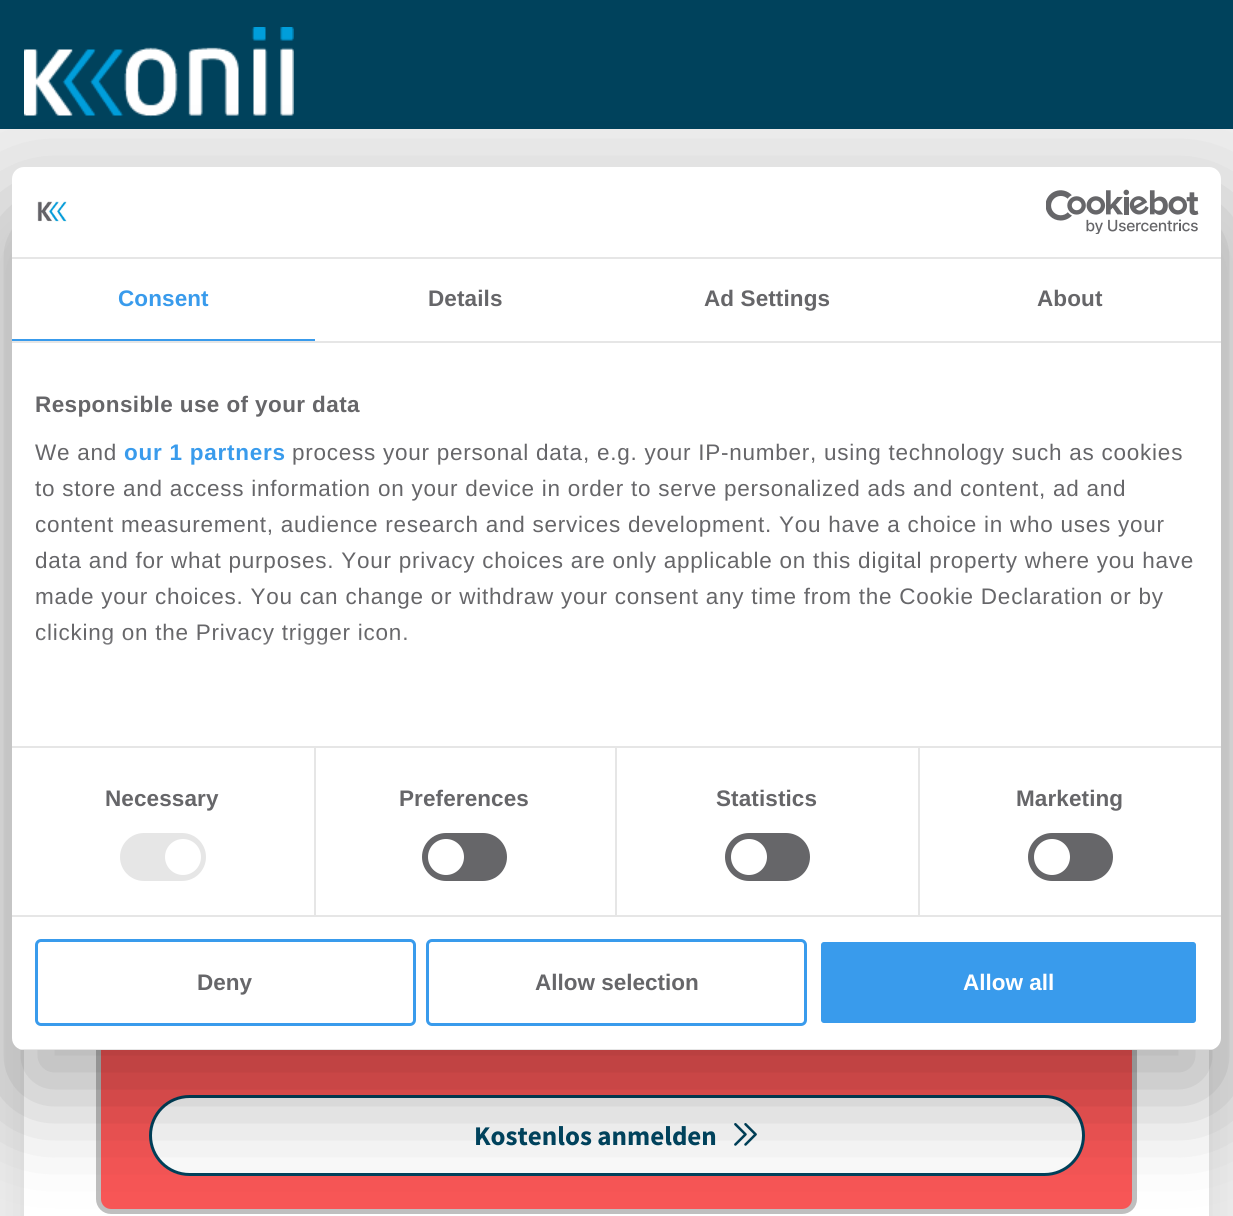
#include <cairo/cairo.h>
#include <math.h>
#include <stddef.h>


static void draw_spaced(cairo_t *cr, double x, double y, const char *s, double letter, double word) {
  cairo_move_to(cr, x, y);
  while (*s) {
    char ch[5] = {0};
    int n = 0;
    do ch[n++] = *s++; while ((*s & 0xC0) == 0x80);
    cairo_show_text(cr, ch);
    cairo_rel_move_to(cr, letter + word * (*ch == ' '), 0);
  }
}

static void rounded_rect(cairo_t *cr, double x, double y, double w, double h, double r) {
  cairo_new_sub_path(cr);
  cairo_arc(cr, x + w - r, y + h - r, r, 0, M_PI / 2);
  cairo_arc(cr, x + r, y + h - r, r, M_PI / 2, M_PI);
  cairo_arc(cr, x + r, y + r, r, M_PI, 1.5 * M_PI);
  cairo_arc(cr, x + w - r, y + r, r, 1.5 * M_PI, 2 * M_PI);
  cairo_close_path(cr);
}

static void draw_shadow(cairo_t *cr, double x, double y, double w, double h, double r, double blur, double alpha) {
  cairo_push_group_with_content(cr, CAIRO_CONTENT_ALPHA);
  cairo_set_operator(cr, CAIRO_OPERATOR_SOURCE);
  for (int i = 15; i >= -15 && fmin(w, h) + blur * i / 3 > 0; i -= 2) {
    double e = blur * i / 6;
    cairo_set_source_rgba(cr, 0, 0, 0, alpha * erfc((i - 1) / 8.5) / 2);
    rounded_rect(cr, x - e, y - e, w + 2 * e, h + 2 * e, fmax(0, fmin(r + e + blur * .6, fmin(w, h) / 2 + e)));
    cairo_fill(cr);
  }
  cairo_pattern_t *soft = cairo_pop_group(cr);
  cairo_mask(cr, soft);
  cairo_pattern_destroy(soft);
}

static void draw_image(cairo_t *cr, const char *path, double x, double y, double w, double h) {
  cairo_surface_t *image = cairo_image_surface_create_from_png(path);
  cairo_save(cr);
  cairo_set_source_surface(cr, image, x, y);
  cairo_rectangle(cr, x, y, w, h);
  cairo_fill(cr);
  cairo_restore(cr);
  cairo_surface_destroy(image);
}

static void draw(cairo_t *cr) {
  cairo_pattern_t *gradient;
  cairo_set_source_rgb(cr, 238 / 255.0, 238 / 255.0, 238 / 255.0);
  cairo_paint(cr);
  cairo_set_source_rgb(cr, 0, 66 / 255.0, 92 / 255.0);
  cairo_rectangle(cr, 0, 0, 1233, 129);
  cairo_fill(cr);
  draw_image(cr, "images/3.png", 24, 27, 270, 90);
  cairo_set_source_rgb(cr, 0, 0, 0);
  draw_shadow(cr, 24, 248, 1185, 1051, 15, 22.5, 0.1);
  cairo_set_source_rgb(cr, 1, 1, 1);
  cairo_rectangle(cr, 24, 1050, 1185, 166);
  cairo_fill(cr);
  cairo_set_source_rgb(cr, 248 / 255.0, 86 / 255.0, 86 / 255.0);
  rounded_rect(cr, 98.5, 658.5, 1036, 553, 12.5);
  cairo_fill_preserve(cr);
  cairo_set_source_rgb(cr, 191 / 255.0, 191 / 255.0, 191 / 255.0);
  cairo_set_line_width(cr, 5);
  cairo_stroke(cr);
  cairo_set_source_rgb(cr, 1, 1, 1);
  rounded_rect(cr, 150.5, 1096.5, 933, 78, 39);
  cairo_fill_preserve(cr);
  cairo_set_source_rgb(cr, 0, 66 / 255.0, 92 / 255.0);
  cairo_set_line_width(cr, 3);
  cairo_stroke(cr);
  draw_image(cr, "images/4.png", 734, 1123, 23, 23);
  cairo_set_source_rgb(cr, 0, 0, 0);
  draw_shadow(cr, 12, 215, 1209, 883, 12, 51, 0.3);
  cairo_set_source_rgb(cr, 1, 1, 1);
  rounded_rect(cr, 12, 167, 1209, 883, 12);
  cairo_fill(cr);
  cairo_set_source_rgb(cr, 230 / 255.0, 230 / 255.0, 230 / 255.0);
  cairo_rectangle(cr, 12, 257, 1209, 2);
  cairo_fill(cr);
  draw_image(cr, "images/1.png", 37, 201, 30, 21);
  draw_image(cr, "images/2.png", 1046, 189, 153, 45);
  cairo_rectangle(cr, 12, 341, 1209, 2);
  cairo_fill(cr);
  cairo_set_source_rgb(cr, 57 / 255.0, 155 / 255.0, 236 / 255.0);
  cairo_rectangle(cr, 12, 339, 303, 2);
  cairo_fill(cr);
  cairo_set_source_rgb(cr, 230 / 255.0, 230 / 255.0, 230 / 255.0);
  cairo_rectangle(cr, 314, 747, 2, 168);
  cairo_fill(cr);
  cairo_rectangle(cr, 615, 747, 2, 168);
  cairo_fill(cr);
  cairo_rectangle(cr, 918, 747, 2, 168);
  cairo_fill(cr);
  cairo_rectangle(cr, 12, 746, 1209, 2);
  cairo_fill(cr);
  cairo_rectangle(cr, 12, 915, 1209, 2);
  cairo_fill(cr);
  rounded_rect(cr, 120, 833, 86, 48, 24);
  cairo_fill(cr);
  cairo_set_source_rgb(cr, 1, 1, 1);
  cairo_arc(cr, 183, 857, 18, 0, 2 * M_PI);
  cairo_fill(cr);
  cairo_set_source_rgb(cr, 102 / 255.0, 102 / 255.0, 105 / 255.0);
  rounded_rect(cr, 422, 833, 85, 48, 24);
  cairo_fill(cr);
  cairo_set_source_rgb(cr, 1, 1, 1);
  cairo_arc(cr, 446, 857, 18, 0, 2 * M_PI);
  cairo_fill(cr);
  cairo_set_source_rgb(cr, 102 / 255.0, 102 / 255.0, 105 / 255.0);
  rounded_rect(cr, 725, 833, 85, 48, 24);
  cairo_fill(cr);
  cairo_set_source_rgb(cr, 1, 1, 1);
  cairo_arc(cr, 749, 857, 18, 0, 2 * M_PI);
  cairo_fill(cr);
  cairo_set_source_rgb(cr, 102 / 255.0, 102 / 255.0, 105 / 255.0);
  rounded_rect(cr, 1028, 833, 85, 48, 24);
  cairo_fill(cr);
  cairo_set_source_rgb(cr, 1, 1, 1);
  cairo_arc(cr, 1052, 857, 18, 0, 2 * M_PI);
  cairo_fill(cr);
  cairo_save(cr);
  rounded_rect(cr, 12, 167, 1209, 883, 12);
  cairo_clip(cr);
  cairo_set_source_rgb(cr, 230 / 255.0, 230 / 255.0, 230 / 255.0);
  cairo_rectangle(cr, 12, 1049, 1209, 1);
  cairo_fill(cr);
  cairo_restore(cr);
  rounded_rect(cr, 36.5, 940.5, 378, 84, 4.5);
  cairo_set_source_rgb(cr, 57 / 255.0, 155 / 255.0, 236 / 255.0);
  cairo_stroke(cr);
  rounded_rect(cr, 427.5, 940.5, 378, 84, 4.5);
  cairo_stroke(cr);
  rounded_rect(cr, 819.5, 940.5, 378, 84, 4.5);
  cairo_fill_preserve(cr);
  cairo_set_source_rgb(cr, 1, 1, 1);
  cairo_stroke(cr);
  cairo_select_font_face(cr, "Liberation Sans", CAIRO_FONT_SLANT_NORMAL, CAIRO_FONT_WEIGHT_BOLD);
  cairo_set_font_size(cr, 22.5);
  cairo_set_source_rgb(cr, 57 / 255.0, 155 / 255.0, 236 / 255.0);
  draw_spaced(cr, 118, 306, "Consent", 0.1, 0);
  cairo_set_source_rgb(cr, 102 / 255.0, 102 / 255.0, 105 / 255.0);
  draw_spaced(cr, 428, 306, "Details", 0.1, 0);
  draw_spaced(cr, 704, 306, "Ad Settings", 0.1, 0);
  draw_spaced(cr, 1037, 306, "About", 0.1, 0);
  draw_spaced(cr, 35, 412, "Responsible use of your data", 0.4, 0);
  cairo_select_font_face(cr, "Liberation Sans", CAIRO_FONT_SLANT_NORMAL, CAIRO_FONT_WEIGHT_NORMAL);
  draw_spaced(cr, 35, 460, "We and", 0.75, 0);
  cairo_select_font_face(cr, "Liberation Sans", CAIRO_FONT_SLANT_NORMAL, CAIRO_FONT_WEIGHT_BOLD);
  cairo_set_source_rgb(cr, 57 / 255.0, 155 / 255.0, 236 / 255.0);
  draw_spaced(cr, 124, 460, "our 1 partners", 0.75, 0);
  cairo_select_font_face(cr, "Liberation Sans", CAIRO_FONT_SLANT_NORMAL, CAIRO_FONT_WEIGHT_NORMAL);
  cairo_set_source_rgb(cr, 102 / 255.0, 102 / 255.0, 105 / 255.0);
  draw_spaced(cr, 292, 460, "process your personal data, e.g. your IP-number, using technology such as cookies", 0.75, 0);
  draw_spaced(cr, 35, 496, "to store and access information on your device in order to serve personalized ads and content, ad and", 0.75, 0);
  draw_spaced(cr, 35, 532, "content measurement, audience research and services development. You have a choice in who uses your", 0.75, 0);
  draw_spaced(cr, 35, 568, "data and for what purposes. Your privacy choices are only applicable on this digital property where you have", 0.75, 0);
  draw_spaced(cr, 35, 604, "made your choices. You can change or withdraw your consent any time from the Cookie Declaration or by", 0.75, 0);
  draw_spaced(cr, 35, 640, "clicking on the Privacy trigger icon.", 0.75, 0);
  gradient = cairo_pattern_create_linear(607, 746, 607, 634);
  cairo_pattern_add_color_stop_rgba(gradient, 0, 1, 1, 1, 1);
  cairo_pattern_add_color_stop_rgba(gradient, 0.5, 1, 1, 1, 0.8);
  cairo_pattern_add_color_stop_rgba(gradient, 1, 1, 1, 1, 0);
  cairo_set_source(cr, gradient);
  cairo_pattern_destroy(gradient);
  cairo_rectangle(cr, 36, 636, 370, 9);
  cairo_fill(cr);
  cairo_select_font_face(cr, "Liberation Sans", CAIRO_FONT_SLANT_NORMAL, CAIRO_FONT_WEIGHT_BOLD);
  cairo_set_source_rgb(cr, 102 / 255.0, 102 / 255.0, 105 / 255.0);
  draw_spaced(cr, 105, 806, "Necessary", 0.1, 0);
  draw_spaced(cr, 399, 806, "Preferences", 0.1, 0);
  draw_spaced(cr, 716, 806, "Statistics", 0.1, 0);
  draw_spaced(cr, 1016, 806, "Marketing", 0.1, 0);
  cairo_move_to(cr, 197, 990);
  cairo_show_text(cr, "Deny");
  cairo_move_to(cr, 535, 990);
  cairo_show_text(cr, "Allow selection");
  cairo_set_source_rgb(cr, 1, 1, 1);
  cairo_move_to(cr, 963, 990);
  cairo_show_text(cr, "Allow all");
  cairo_select_font_face(cr, "Source Sans Pro", CAIRO_FONT_SLANT_NORMAL, CAIRO_FONT_WEIGHT_BOLD);
  cairo_set_font_size(cr, 27);
  cairo_set_source_rgb(cr, 0, 66 / 255.0, 92 / 255.0);
  cairo_move_to(cr, 474, 1145);
  cairo_show_text(cr, "Kostenlos anmelden");
}

int main(void) {
  cairo_surface_t *surface = cairo_image_surface_create(CAIRO_FORMAT_RGB24, 1233, 1216);
  cairo_t *cr = cairo_create(surface);
  cairo_font_options_t *options = cairo_font_options_create();
  cairo_font_options_set_hint_metrics(options, CAIRO_HINT_METRICS_OFF);
  cairo_font_options_set_hint_style(options, CAIRO_HINT_STYLE_NONE);
  cairo_set_font_options(cr, options);
  cairo_set_miter_limit(cr, 4);
  draw(cr);
  cairo_surface_write_to_png(surface, "out.png");
  cairo_font_options_destroy(options);
  cairo_destroy(cr);
  cairo_surface_destroy(surface);
  return 0;
}
